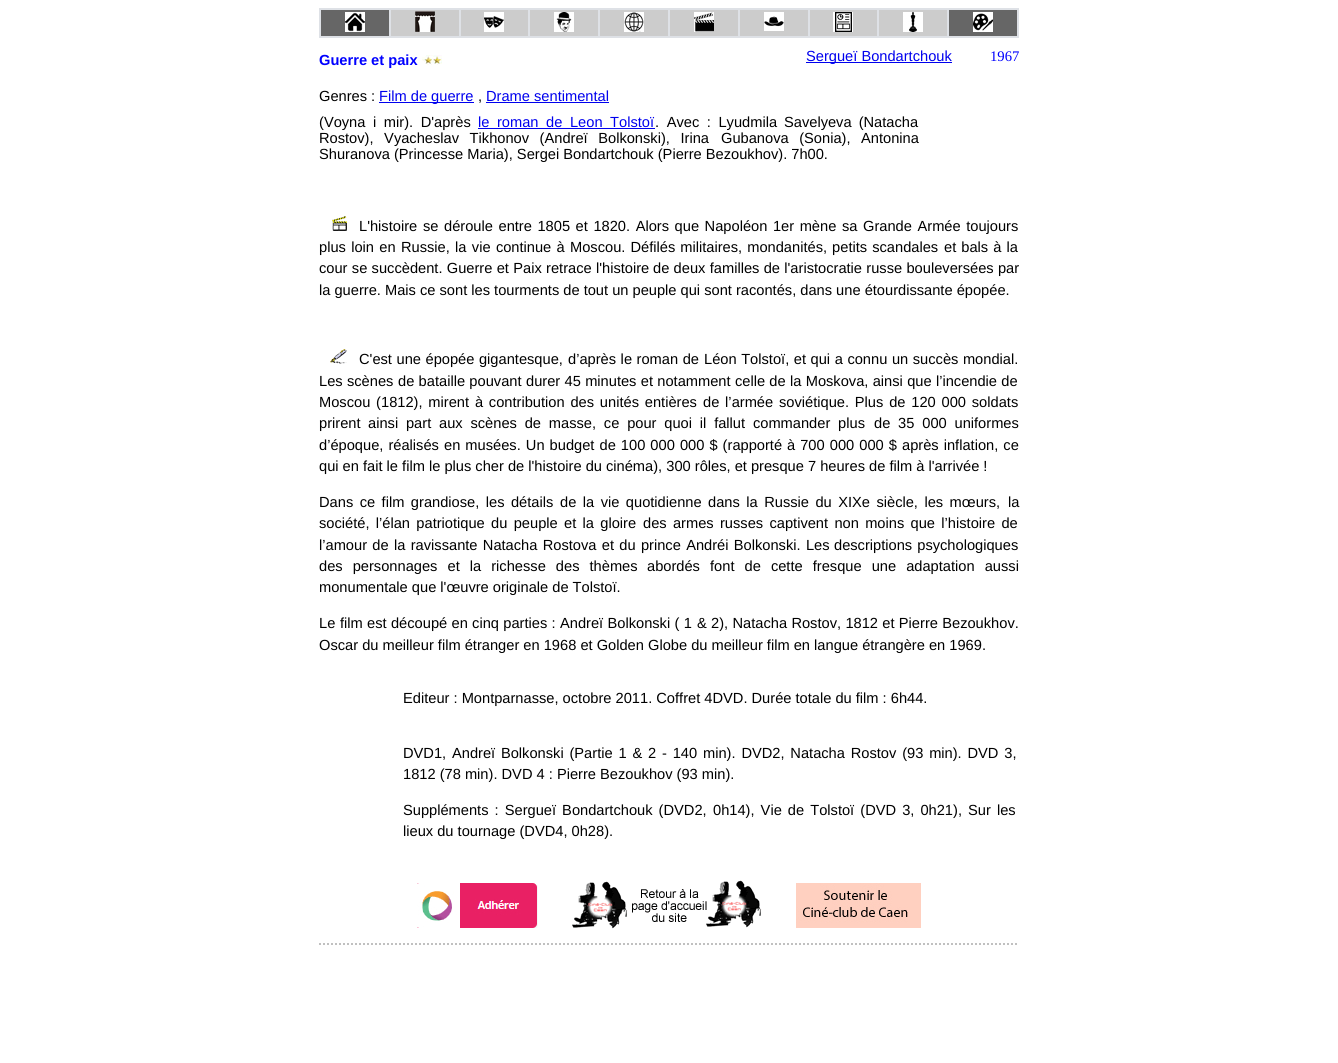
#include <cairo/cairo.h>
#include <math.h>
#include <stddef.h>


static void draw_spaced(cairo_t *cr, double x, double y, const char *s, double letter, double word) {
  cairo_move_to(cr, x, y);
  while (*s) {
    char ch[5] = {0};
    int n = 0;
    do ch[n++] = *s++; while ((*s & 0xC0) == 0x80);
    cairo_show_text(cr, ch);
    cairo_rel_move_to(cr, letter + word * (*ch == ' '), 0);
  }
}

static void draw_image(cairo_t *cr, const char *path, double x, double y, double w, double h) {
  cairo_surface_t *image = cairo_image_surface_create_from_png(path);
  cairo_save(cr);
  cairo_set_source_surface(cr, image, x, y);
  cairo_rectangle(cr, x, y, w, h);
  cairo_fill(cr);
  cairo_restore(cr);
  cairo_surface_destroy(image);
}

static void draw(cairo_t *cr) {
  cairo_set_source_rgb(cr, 1, 1, 1);
  cairo_paint(cr);
  cairo_set_source_rgb(cr, 222 / 255.0, 225 / 255.0, 230 / 255.0);
  cairo_rectangle(cr, 319, 8, 700, 30);
  cairo_fill(cr);
  cairo_set_source_rgb(cr, 102 / 255.0, 102 / 255.0, 102 / 255.0);
  cairo_rectangle(cr, 321, 10, 68, 26);
  cairo_fill(cr);
  draw_image(cr, "images/1.png", 345, 12, 20, 20);
  cairo_set_source_rgb(cr, 204 / 255.0, 204 / 255.0, 204 / 255.0);
  cairo_rectangle(cr, 391, 10, 68, 26);
  cairo_fill(cr);
  draw_image(cr, "images/2.png", 415, 11, 20, 21);
  cairo_rectangle(cr, 461, 10, 67, 26);
  cairo_fill(cr);
  draw_image(cr, "images/3.png", 484, 12, 20, 20);
  cairo_rectangle(cr, 530, 10, 68, 26);
  cairo_fill(cr);
  draw_image(cr, "images/4.png", 554, 12, 20, 20);
  cairo_rectangle(cr, 600, 10, 68, 26);
  cairo_fill(cr);
  draw_image(cr, "images/5.png", 624, 12, 20, 20);
  cairo_rectangle(cr, 670, 10, 68, 26);
  cairo_fill(cr);
  draw_image(cr, "images/6.png", 694, 12, 20, 20);
  cairo_rectangle(cr, 740, 10, 68, 26);
  cairo_fill(cr);
  draw_image(cr, "images/7.png", 764, 12, 20, 19);
  cairo_rectangle(cr, 810, 10, 67, 26);
  cairo_fill(cr);
  draw_image(cr, "images/8.png", 833, 12, 20, 20);
  cairo_rectangle(cr, 879, 10, 68, 26);
  cairo_fill(cr);
  draw_image(cr, "images/9.png", 903, 12, 20, 20);
  cairo_set_source_rgb(cr, 102 / 255.0, 102 / 255.0, 102 / 255.0);
  cairo_rectangle(cr, 949, 10, 68, 26);
  cairo_fill(cr);
  draw_image(cr, "images/10.png", 973, 12, 20, 20);
  draw_image(cr, "images/11.png", 422, 55, 20, 10);
  cairo_set_source_rgb(cr, 0, 0, 238 / 255.0);
  cairo_rectangle(cr, 806, 62, 146, 1);
  cairo_fill(cr);
  cairo_rectangle(cr, 379, 102, 95, 1);
  cairo_fill(cr);
  cairo_rectangle(cr, 486, 102, 123, 1);
  cairo_fill(cr);
  cairo_rectangle(cr, 478, 128, 177, 1);
  cairo_fill(cr);
  draw_image(cr, "images/12.png", 332, 216, 15, 15);
  draw_image(cr, "images/13.png", 330, 349, 17, 15);
  draw_image(cr, "images/14.png", 417, 883, 121, 45);
  draw_image(cr, "images/15.png", 572, 880, 190, 49);
  draw_image(cr, "images/16.png", 796, 883, 125, 45);
  cairo_new_path(cr);
  cairo_move_to(cr, 319, 944);
  cairo_line_to(cr, 1019, 944);
  cairo_set_source_rgb(cr, 192 / 255.0, 192 / 255.0, 192 / 255.0);
  cairo_set_dash(cr, (double[]){2, 2}, 2, 0);
  cairo_stroke(cr);
  cairo_select_font_face(cr, "Liberation Sans", CAIRO_FONT_SLANT_NORMAL, CAIRO_FONT_WEIGHT_BOLD);
  cairo_set_font_size(cr, 14.65);
  cairo_set_source_rgb(cr, 0, 0, 1);
  cairo_move_to(cr, 319, 65);
  cairo_show_text(cr, "Guerre et paix");
  cairo_select_font_face(cr, "Liberation Sans", CAIRO_FONT_SLANT_NORMAL, CAIRO_FONT_WEIGHT_NORMAL);
  cairo_set_source_rgb(cr, 0, 0, 238 / 255.0);
  cairo_move_to(cr, 806, 61);
  cairo_show_text(cr, "Sergueï Bondartchouk");
  cairo_select_font_face(cr, "Liberation Serif", CAIRO_FONT_SLANT_NORMAL, CAIRO_FONT_WEIGHT_NORMAL);
  cairo_set_source_rgb(cr, 0, 0, 1);
  cairo_move_to(cr, 990, 61);
  cairo_show_text(cr, "1967");
  cairo_select_font_face(cr, "Liberation Sans", CAIRO_FONT_SLANT_NORMAL, CAIRO_FONT_WEIGHT_NORMAL);
  cairo_set_source_rgb(cr, 0, 0, 0);
  cairo_move_to(cr, 319, 101);
  cairo_show_text(cr, "Genres :");
  cairo_set_source_rgb(cr, 0, 0, 238 / 255.0);
  cairo_move_to(cr, 379, 101);
  cairo_show_text(cr, "Film de guerre");
  cairo_set_source_rgb(cr, 0, 0, 0);
  cairo_move_to(cr, 478, 101);
  cairo_show_text(cr, ",");
  cairo_set_source_rgb(cr, 0, 0, 238 / 255.0);
  cairo_move_to(cr, 486, 101);
  cairo_show_text(cr, "Drame sentimental");
  cairo_set_source_rgb(cr, 0, 0, 0);
  cairo_move_to(cr, 319, 127);
  cairo_show_text(cr, "(Voyna");
  draw_spaced(cr, 373, 127, "i mir). D'après", 0, 3.5);
  cairo_set_source_rgb(cr, 0, 0, 238 / 255.0);
  draw_spaced(cr, 478, 127, "le roman de Leon Tolstoï", 0, 3.5);
  cairo_set_source_rgb(cr, 0, 0, 0);
  draw_spaced(cr, 655, 127, ". Avec : Lyudmila", 0, 3.5);
  draw_spaced(cr, 784, 127, "Savelyeva (Natacha", 0, 3);
  draw_spaced(cr, 319, 143, "Rostov), Vyacheslav Tikhonov (Andreï Bolkonski), Irina", 0, 6.5);
  draw_spaced(cr, 721, 143, "Gubanova (Sonia), Antonina", 0, 6.5);
  cairo_move_to(cr, 319, 159);
  cairo_show_text(cr, "Shuranova (Princesse Maria), Sergei Bondartchouk (Pierre Bezoukhov). 7h00.");
  cairo_move_to(cr, 359, 231);
  cairo_show_text(cr, "L'histoire");
  draw_spaced(cr, 423, 231, "se déroule entre 1805 et 1820. Alors que Napoléon 1er mène", 0, 1.5);
  draw_spaced(cr, 842, 231, "sa Grande Armée toujours", 0, 1.5);
  draw_spaced(cr, 319, 252, "plus loin en Russie, la vie continue à", 0, 1.25);
  draw_spaced(cr, 570, 252, "Moscou. Défilés militaires, mondanités, petits scandales", 0, 1);
  draw_spaced(cr, 944, 252, "et bals à la", 0, 1);
  draw_spaced(cr, 319, 273, "cour se succèdent. Guerre et Paix retrace l'histoire", 0, 0.25);
  draw_spaced(cr, 653, 273, "de deux familles de l'aristocratie russe bouleversées par", 0, 0.25);
  cairo_move_to(cr, 319, 295);
  cairo_show_text(cr, "la guerre. Mais ce sont les tourments de tout un peuple qui sont racontés, dans une étourdissante épopée.");
  draw_spaced(cr, 359, 364, "C'est une épopée gigantesque,", 0, 0.5);
  draw_spaced(cr, 568, 364, "d’après le roman de", 0, 0.5);
  draw_spaced(cr, 704, 364, "Léon Tolstoï, et qui a connu un succès mondial.", 0, 0.5);
  draw_spaced(cr, 319, 386, "Les scènes", 0, 0.25);
  draw_spaced(cr, 398, 386, "de bataille pouvant", 0, 0.25);
  draw_spaced(cr, 526, 386, "durer 45 minutes et notamment celle de la Moskova, ainsi que l’incendie de", 0, 0.25);
  draw_spaced(cr, 319, 407, "Moscou (1812), mirent à contribution des unités entières", 0, 1.75);
  draw_spaced(cr, 703, 407, "de l’armée soviétique. Plus de 120 000 soldats", 0, 1.75);
  cairo_move_to(cr, 319, 428);
  cairo_show_text(cr, "prirent");
  draw_spaced(cr, 368, 428, "ainsi part aux scènes de masse, ce pour quoi il fallut commander plus", 0, 3.75);
  draw_spaced(cr, 874, 428, "de 35 000 uniformes", 0, 3.75);
  draw_spaced(cr, 319, 450, "d’époque, réalisés", 0, 1);
  draw_spaced(cr, 444, 450, "en musées. Un budget de 100 000 000 $ (rapporté", 0, 1);
  draw_spaced(cr, 787, 450, "à 700 000 000 $ après inflation, ce", 0, 1);
  cairo_move_to(cr, 319, 471);
  cairo_show_text(cr, "qui en fait le film le plus cher de l'histoire du cinéma), 300 rôles, et presque 7 heures de film à l'arrivée !");
  draw_spaced(cr, 319, 507, "Dans ce film grandiose, les détails", 0, 2.4);
  draw_spaced(cr, 560, 507, "de la vie quotidienne dans la Russie du XIXe siècle, les mœurs,", 0, 2.4);
  cairo_move_to(cr, 1008, 507);
  cairo_show_text(cr, "la");
  draw_spaced(cr, 319, 528, "société, l’élan patriotique du peuple et la gloire", 0, 2.25);
  draw_spaced(cr, 643, 528, "des armes russes captivent non moins que l’histoire de", 0, 2.25);
  draw_spaced(cr, 319, 550, "l’amour de", 0, 1.25);
  draw_spaced(cr, 394, 550, "la ravissante Natacha Rostova et du prince Andréi Bolkonski. Les", 0, 1.25);
  draw_spaced(cr, 834, 550, "descriptions psychologiques", 0, 1);
  draw_spaced(cr, 319, 571, "des personnages et la richesse des thèmes", 0, 6);
  draw_spaced(cr, 647, 571, "abordés font de cette fresque une adaptation aussi", 0, 6);
  cairo_move_to(cr, 319, 592);
  cairo_show_text(cr, "monumentale que l'œuvre originale de Tolstoï.");
  cairo_move_to(cr, 319, 628);
  cairo_show_text(cr, "Le");
  draw_spaced(cr, 340, 628, "film est découpé en cinq parties : Andreï Bolkonski ( 1", 0, 0.25);
  draw_spaced(cr, 697, 628, "& 2), Natacha Rostov, 1812 et Pierre Bezoukhov.", 0, 0.25);
  cairo_move_to(cr, 319, 650);
  cairo_show_text(cr, "Oscar du meilleur film étranger en 1968 et Golden Globe du meilleur film en langue étrangère en 1969.");
  cairo_move_to(cr, 403, 703);
  cairo_show_text(cr, "Editeur : Montparnasse, octobre 2011. Coffret 4DVD. Durée totale du film : 6h44.");
  draw_spaced(cr, 403, 758, "DVD1, Andreï Bolkonski (Partie 1 & 2 - 140", 0, 1.75);
  draw_spaced(cr, 703, 758, "min). DVD2, Natacha Rostov (93 min). DVD 3,", 0, 1.75);
  cairo_move_to(cr, 403, 779);
  cairo_show_text(cr, "1812 (78 min). DVD 4 : Pierre Bezoukhov (93 min).");
  draw_spaced(cr, 403, 815, "Suppléments : Sergueï Bondartchouk (DVD2,", 0, 2);
  draw_spaced(cr, 713, 815, "0h14), Vie de Tolstoï (DVD 3, 0h21), Sur les", 0, 2);
  cairo_move_to(cr, 403, 836);
  cairo_show_text(cr, "lieux du tournage (DVD4, 0h28).");
}

int main(void) {
  cairo_surface_t *surface = cairo_image_surface_create(CAIRO_FORMAT_RGB24, 1338, 1063);
  cairo_t *cr = cairo_create(surface);
  cairo_font_options_t *options = cairo_font_options_create();
  cairo_font_options_set_hint_metrics(options, CAIRO_HINT_METRICS_OFF);
  cairo_font_options_set_hint_style(options, CAIRO_HINT_STYLE_NONE);
  cairo_set_font_options(cr, options);
  cairo_set_miter_limit(cr, 4);
  draw(cr);
  cairo_surface_write_to_png(surface, "out.png");
  cairo_font_options_destroy(options);
  cairo_destroy(cr);
  cairo_surface_destroy(surface);
  return 0;
}
